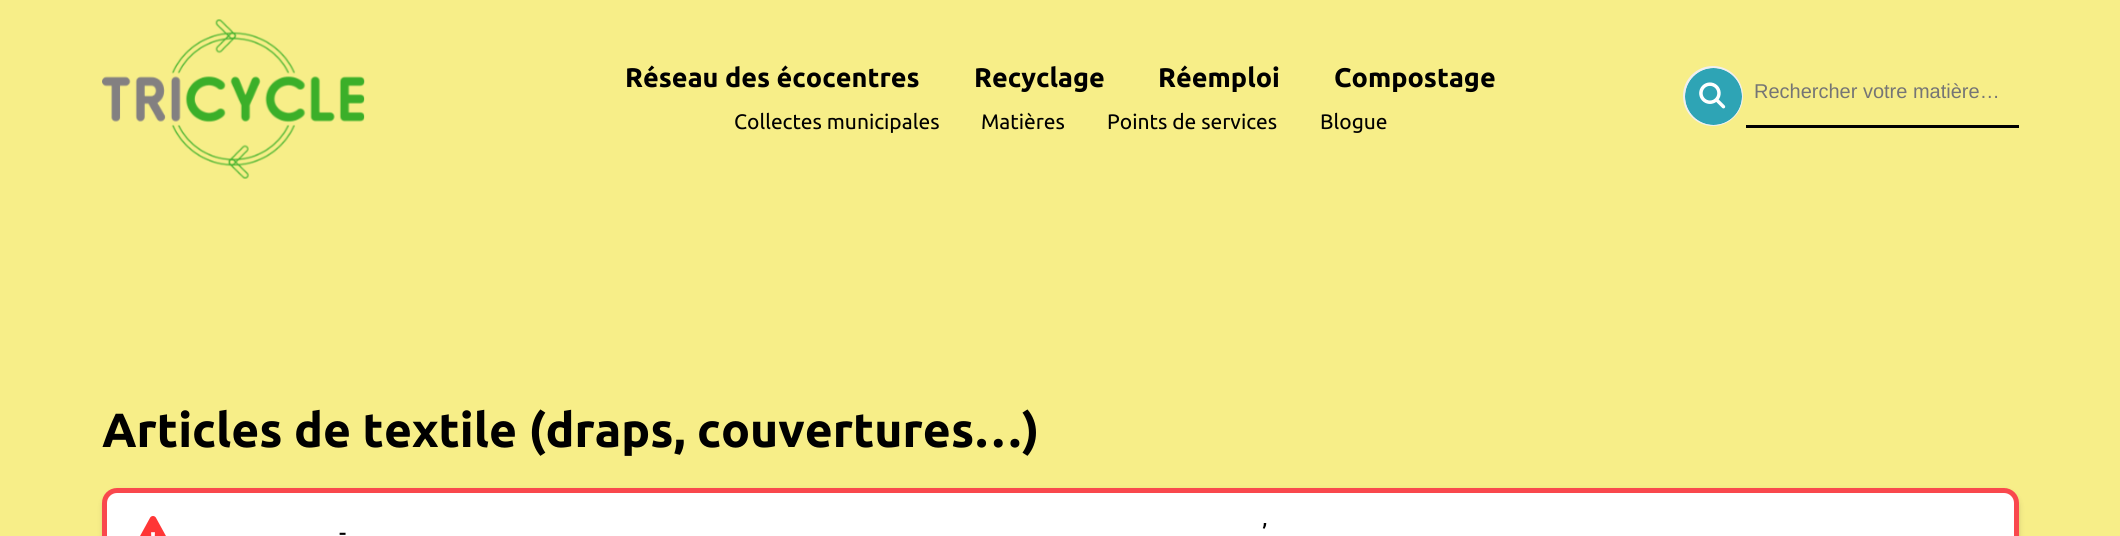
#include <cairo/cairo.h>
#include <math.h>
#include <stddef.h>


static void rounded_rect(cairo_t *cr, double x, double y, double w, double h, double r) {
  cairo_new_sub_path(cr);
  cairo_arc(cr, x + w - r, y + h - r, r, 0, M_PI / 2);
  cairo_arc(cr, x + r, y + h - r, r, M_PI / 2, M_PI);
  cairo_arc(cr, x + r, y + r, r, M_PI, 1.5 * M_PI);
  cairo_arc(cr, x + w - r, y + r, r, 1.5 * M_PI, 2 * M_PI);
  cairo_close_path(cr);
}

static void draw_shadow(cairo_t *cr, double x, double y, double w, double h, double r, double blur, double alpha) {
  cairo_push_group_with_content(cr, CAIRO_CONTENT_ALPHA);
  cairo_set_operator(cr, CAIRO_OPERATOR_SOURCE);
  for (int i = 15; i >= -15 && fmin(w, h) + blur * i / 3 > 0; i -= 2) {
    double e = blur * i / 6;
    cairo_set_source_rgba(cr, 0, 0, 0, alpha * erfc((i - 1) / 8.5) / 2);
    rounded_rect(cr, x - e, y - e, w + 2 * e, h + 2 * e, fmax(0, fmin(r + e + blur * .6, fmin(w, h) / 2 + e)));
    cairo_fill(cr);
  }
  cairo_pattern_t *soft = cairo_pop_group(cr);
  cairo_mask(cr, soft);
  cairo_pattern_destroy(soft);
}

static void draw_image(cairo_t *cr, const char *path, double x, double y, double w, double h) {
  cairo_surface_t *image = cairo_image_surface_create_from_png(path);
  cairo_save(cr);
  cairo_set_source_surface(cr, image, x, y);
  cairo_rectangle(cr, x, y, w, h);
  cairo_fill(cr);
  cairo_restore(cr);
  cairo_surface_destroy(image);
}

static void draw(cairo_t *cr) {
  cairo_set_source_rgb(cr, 247 / 255.0, 238 / 255.0, 136 / 255.0);
  cairo_paint(cr);
  draw_image(cr, "images/1.png", 102, 19, 263, 160);
  cairo_set_source_rgb(cr, 239 / 255.0, 239 / 255.0, 239 / 255.0);
  cairo_arc(cr, 1713, 96, 30, 0, 2 * M_PI);
  cairo_fill(cr);
  draw_image(cr, "images/2.png", 1685, 68, 57, 57);
  cairo_set_source_rgb(cr, 0, 0, 0);
  cairo_rectangle(cr, 1746, 125, 273, 3);
  cairo_fill(cr);
  cairo_set_source_rgb(cr, 0, 0, 0);
  draw_shadow(cr, 110, 498, 1902, 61, 8, 5, 1);
  cairo_set_source_rgb(cr, 1, 1, 1);
  rounded_rect(cr, 104.5, 490.5, 1912, 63, 12.5);
  cairo_fill_preserve(cr);
  cairo_set_source_rgb(cr, 249 / 255.0, 72 / 255.0, 77 / 255.0);
  cairo_set_line_width(cr, 5);
  cairo_stroke(cr);
  draw_image(cr, "images/3.png", 140, 516, 26, 20);
  cairo_select_font_face(cr, "Ubuntu", CAIRO_FONT_SLANT_NORMAL, CAIRO_FONT_WEIGHT_BOLD);
  cairo_set_font_size(cr, 27);
  cairo_set_source_rgb(cr, 0, 0, 0);
  cairo_move_to(cr, 625, 87);
  cairo_show_text(cr, "Réseau des écocentres");
  cairo_move_to(cr, 974, 87);
  cairo_show_text(cr, "Recyclage");
  cairo_move_to(cr, 1158, 87);
  cairo_show_text(cr, "Réemploi");
  cairo_move_to(cr, 1334, 87);
  cairo_show_text(cr, "Compostage");
  cairo_select_font_face(cr, "Ubuntu", CAIRO_FONT_SLANT_NORMAL, CAIRO_FONT_WEIGHT_NORMAL);
  cairo_set_font_size(cr, 21);
  cairo_move_to(cr, 734, 129);
  cairo_show_text(cr, "Collectes municipales");
  cairo_move_to(cr, 981, 129);
  cairo_show_text(cr, "Matières");
  cairo_move_to(cr, 1107, 129);
  cairo_show_text(cr, "Points de services");
  cairo_move_to(cr, 1320, 129);
  cairo_show_text(cr, "Blogue");
  cairo_select_font_face(cr, "Liberation Sans", CAIRO_FONT_SLANT_NORMAL, CAIRO_FONT_WEIGHT_NORMAL);
  cairo_set_font_size(cr, 20);
  cairo_set_source_rgb(cr, 117 / 255.0, 117 / 255.0, 117 / 255.0);
  cairo_move_to(cr, 1754, 98);
  cairo_show_text(cr, "Rechercher votre matière…");
  cairo_select_font_face(cr, "Ubuntu", CAIRO_FONT_SLANT_NORMAL, CAIRO_FONT_WEIGHT_BOLD);
  cairo_set_font_size(cr, 48);
  cairo_set_source_rgb(cr, 0, 0, 0);
  cairo_move_to(cr, 102, 447);
  cairo_show_text(cr, "Articles de textile (draps, couvertures…)");
  cairo_select_font_face(cr, "Ubuntu", CAIRO_FONT_SLANT_NORMAL, CAIRO_FONT_WEIGHT_NORMAL);
  cairo_set_font_size(cr, 24);
  cairo_move_to(cr, 1262, 541);
  cairo_show_text(cr, "’");
  cairo_move_to(cr, 339, 541);
  cairo_show_text(cr, "-");
}

int main(void) {
  cairo_surface_t *surface = cairo_image_surface_create(CAIRO_FORMAT_RGB24, 2120, 536);
  cairo_t *cr = cairo_create(surface);
  cairo_font_options_t *options = cairo_font_options_create();
  cairo_font_options_set_hint_metrics(options, CAIRO_HINT_METRICS_OFF);
  cairo_font_options_set_hint_style(options, CAIRO_HINT_STYLE_NONE);
  cairo_set_font_options(cr, options);
  cairo_set_miter_limit(cr, 4);
  draw(cr);
  cairo_surface_write_to_png(surface, "out.png");
  cairo_font_options_destroy(options);
  cairo_destroy(cr);
  cairo_surface_destroy(surface);
  return 0;
}
